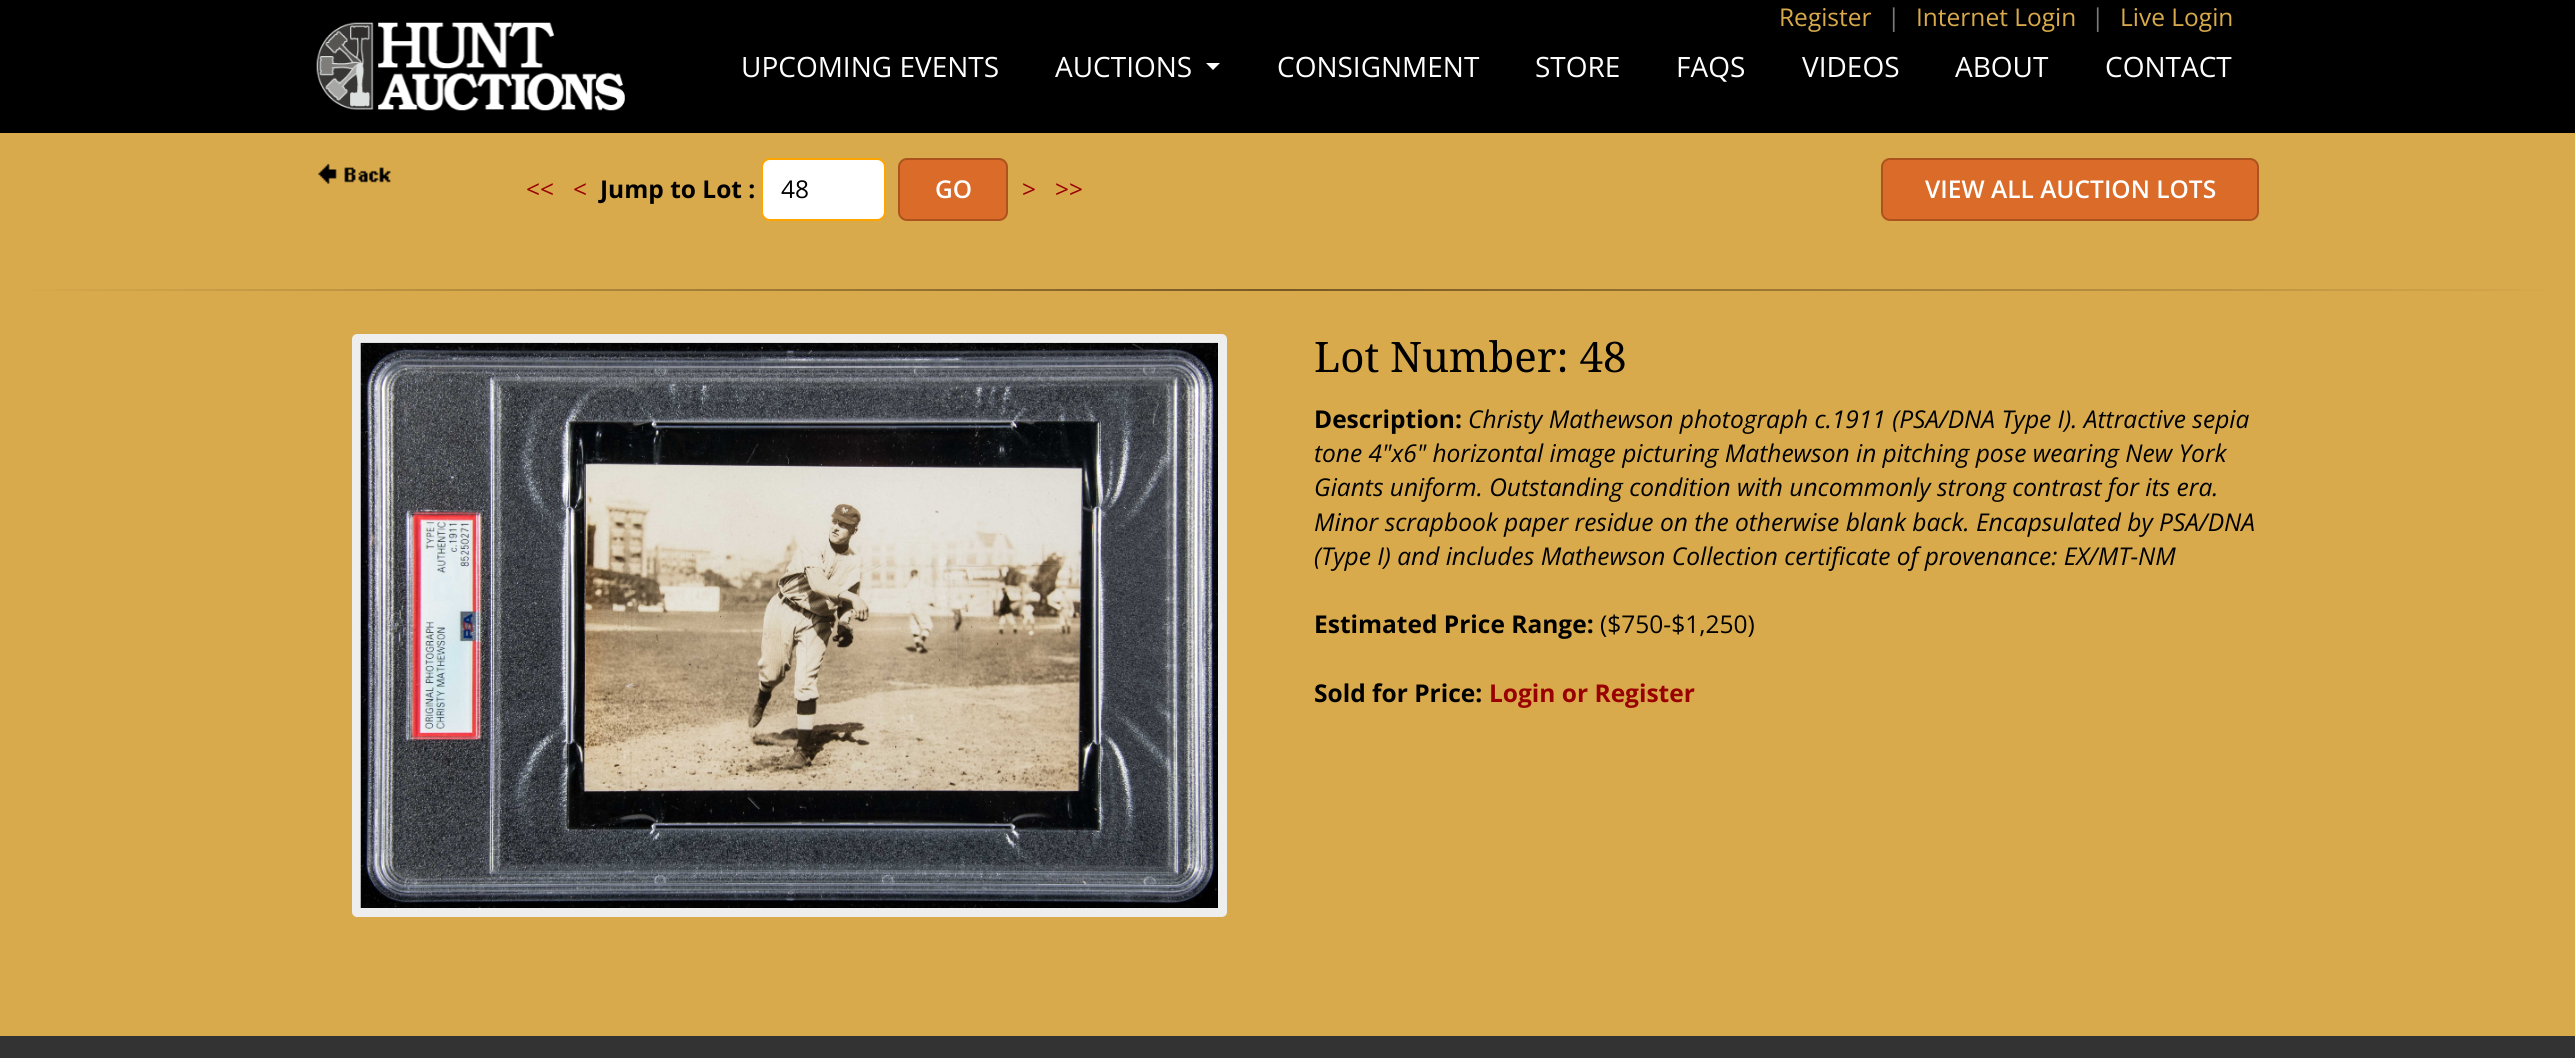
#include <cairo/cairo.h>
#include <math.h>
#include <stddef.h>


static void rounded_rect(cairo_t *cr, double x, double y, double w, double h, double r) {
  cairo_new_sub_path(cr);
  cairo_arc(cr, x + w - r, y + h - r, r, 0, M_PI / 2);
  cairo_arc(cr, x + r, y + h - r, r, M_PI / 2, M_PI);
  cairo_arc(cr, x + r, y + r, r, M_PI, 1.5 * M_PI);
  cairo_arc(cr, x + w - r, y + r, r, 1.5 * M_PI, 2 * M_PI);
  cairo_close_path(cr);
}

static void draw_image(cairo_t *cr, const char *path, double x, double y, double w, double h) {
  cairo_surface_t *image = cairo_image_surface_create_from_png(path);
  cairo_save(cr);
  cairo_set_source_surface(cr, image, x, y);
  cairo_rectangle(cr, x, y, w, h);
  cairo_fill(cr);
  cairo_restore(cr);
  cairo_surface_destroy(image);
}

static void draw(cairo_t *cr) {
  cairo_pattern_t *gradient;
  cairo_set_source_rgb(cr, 51 / 255.0, 51 / 255.0, 51 / 255.0);
  cairo_paint(cr);
  cairo_set_source_rgb(cr, 216 / 255.0, 170 / 255.0, 76 / 255.0);
  cairo_rectangle(cr, 0, 133, 2575, 903);
  cairo_fill(cr);
  cairo_set_source_rgb(cr, 0, 0, 0);
  cairo_rectangle(cr, 0, 0, 2575, 133);
  cairo_fill(cr);
  draw_image(cr, "images/1.png", 316, 22, 309, 89);
  cairo_set_source_rgb(cr, 1, 1, 1);
  cairo_new_path(cr);
  cairo_move_to(cr, 1206, 63);
  cairo_line_to(cr, 1220, 63);
  cairo_line_to(cr, 1213, 70);
  cairo_close_path(cr);
  cairo_fill(cr);
  draw_image(cr, "images/2.png", 318, 163, 73, 21);
  rounded_rect(cr, 762, 159, 123, 61, 8);
  cairo_fill_preserve(cr);
  cairo_set_source_rgb(cr, 1, 165 / 255.0, 0);
  cairo_stroke(cr);
  cairo_set_source_rgb(cr, 219 / 255.0, 107 / 255.0, 40 / 255.0);
  rounded_rect(cr, 899, 159, 108, 61, 8);
  cairo_fill_preserve(cr);
  cairo_set_source_rgb(cr, 173 / 255.0, 83 / 255.0, 30 / 255.0);
  cairo_stroke(cr);
  cairo_set_source_rgb(cr, 219 / 255.0, 107 / 255.0, 40 / 255.0);
  rounded_rect(cr, 1882, 159, 376, 61, 8);
  cairo_fill_preserve(cr);
  cairo_set_source_rgb(cr, 173 / 255.0, 83 / 255.0, 30 / 255.0);
  cairo_stroke(cr);
  gradient = cairo_pattern_create_linear(0, 290, 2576, 290);
  cairo_pattern_add_color_stop_rgba(gradient, 0, 216 / 255.0, 170 / 255.0, 76 / 255.0, 1);
  cairo_pattern_add_color_stop_rgba(gradient, 0.5, 119 / 255.0, 89 / 255.0, 37 / 255.0, 1);
  cairo_pattern_add_color_stop_rgba(gradient, 1, 216 / 255.0, 170 / 255.0, 76 / 255.0, 1);
  cairo_set_source(cr, gradient);
  cairo_pattern_destroy(gradient);
  cairo_rectangle(cr, 33, 289, 2510, 2);
  cairo_fill(cr);
  rounded_rect(cr, 356.5, 338.5, 866, 574, 0.5);
  cairo_set_source_rgb(cr, 238 / 255.0, 238 / 255.0, 238 / 255.0);
  cairo_set_line_width(cr, 9);
  cairo_stroke(cr);
  draw_image(cr, "images/3.png", 360, 342, 858, 566);
  cairo_select_font_face(cr, "Open Sans", CAIRO_FONT_SLANT_NORMAL, CAIRO_FONT_WEIGHT_NORMAL);
  cairo_set_font_size(cr, 24.5);
  cairo_set_source_rgb(cr, 216 / 255.0, 170 / 255.0, 76 / 255.0);
  cairo_move_to(cr, 1779, 26);
  cairo_show_text(cr, "Register");
  cairo_set_source_rgb(cr, 123 / 255.0, 123 / 255.0, 123 / 255.0);
  cairo_move_to(cr, 1887, 26);
  cairo_show_text(cr, "|");
  cairo_set_source_rgb(cr, 216 / 255.0, 170 / 255.0, 76 / 255.0);
  cairo_move_to(cr, 1916, 26);
  cairo_show_text(cr, "Internet Login");
  cairo_set_source_rgb(cr, 123 / 255.0, 123 / 255.0, 123 / 255.0);
  cairo_move_to(cr, 2091, 26);
  cairo_show_text(cr, "|");
  cairo_set_source_rgb(cr, 216 / 255.0, 170 / 255.0, 76 / 255.0);
  cairo_move_to(cr, 2120, 26);
  cairo_show_text(cr, "Live Login");
  cairo_set_font_size(cr, 28);
  cairo_set_source_rgb(cr, 1, 1, 1);
  cairo_move_to(cr, 741, 77);
  cairo_show_text(cr, "UPCOMING EVENTS");
  cairo_move_to(cr, 1055, 77);
  cairo_show_text(cr, "AUCTIONS");
  cairo_move_to(cr, 1277, 77);
  cairo_show_text(cr, "CONSIGNMENT");
  cairo_move_to(cr, 1535, 77);
  cairo_show_text(cr, "STORE");
  cairo_move_to(cr, 1676, 77);
  cairo_show_text(cr, "FAQS");
  cairo_move_to(cr, 1802, 77);
  cairo_show_text(cr, "VIDEOS");
  cairo_move_to(cr, 1955, 77);
  cairo_show_text(cr, "ABOUT");
  cairo_move_to(cr, 2105, 77);
  cairo_show_text(cr, "CONTACT");
  cairo_set_font_size(cr, 24.5);
  cairo_set_source_rgb(cr, 153 / 255.0, 0, 0);
  cairo_move_to(cr, 526, 198);
  cairo_show_text(cr, "<<");
  cairo_move_to(cr, 573, 198);
  cairo_show_text(cr, "<");
  cairo_select_font_face(cr, "Open Sans", CAIRO_FONT_SLANT_NORMAL, CAIRO_FONT_WEIGHT_BOLD);
  cairo_set_source_rgb(cr, 0, 0, 0);
  cairo_move_to(cr, 600, 198);
  cairo_show_text(cr, "Jump to Lot :");
  cairo_select_font_face(cr, "Open Sans", CAIRO_FONT_SLANT_NORMAL, CAIRO_FONT_WEIGHT_NORMAL);
  cairo_move_to(cr, 781, 198);
  cairo_show_text(cr, "48");
  cairo_select_font_face(cr, "Open Sans SemiBold", CAIRO_FONT_SLANT_NORMAL, CAIRO_FONT_WEIGHT_NORMAL);
  cairo_set_source_rgb(cr, 1, 1, 1);
  cairo_move_to(cr, 935, 198);
  cairo_show_text(cr, "GO");
  cairo_select_font_face(cr, "Open Sans", CAIRO_FONT_SLANT_NORMAL, CAIRO_FONT_WEIGHT_NORMAL);
  cairo_set_source_rgb(cr, 153 / 255.0, 0, 0);
  cairo_move_to(cr, 1022, 198);
  cairo_show_text(cr, ">");
  cairo_move_to(cr, 1055, 198);
  cairo_show_text(cr, ">>");
  cairo_select_font_face(cr, "Open Sans SemiBold", CAIRO_FONT_SLANT_NORMAL, CAIRO_FONT_WEIGHT_NORMAL);
  cairo_set_source_rgb(cr, 1, 1, 1);
  cairo_move_to(cr, 1925, 198);
  cairo_show_text(cr, "VIEW ALL AUCTION LOTS");
  cairo_select_font_face(cr, "Droid Serif", CAIRO_FONT_SLANT_NORMAL, CAIRO_FONT_WEIGHT_NORMAL);
  cairo_set_font_size(cr, 42);
  cairo_set_source_rgb(cr, 0, 0, 0);
  cairo_move_to(cr, 1314, 372);
  cairo_show_text(cr, "Lot Number: 48");
  cairo_select_font_face(cr, "Open Sans", CAIRO_FONT_SLANT_NORMAL, CAIRO_FONT_WEIGHT_BOLD);
  cairo_set_font_size(cr, 24.5);
  cairo_move_to(cr, 1314, 428);
  cairo_show_text(cr, "Description:");
  cairo_select_font_face(cr, "Open Sans", CAIRO_FONT_SLANT_ITALIC, CAIRO_FONT_WEIGHT_NORMAL);
  cairo_move_to(cr, 1468, 428);
  cairo_show_text(cr, "Christy Mathewson photograph c.1911 (PSA/DNA Type I). Attractive sepia");
  cairo_move_to(cr, 1314, 462);
  cairo_show_text(cr, "tone 4\"x6\" horizontal image picturing Mathewson in pitching pose wearing New York");
  cairo_move_to(cr, 1314, 496);
  cairo_show_text(cr, "Giants uniform. Outstanding condition with uncommonly strong contrast for its era.");
  cairo_move_to(cr, 1314, 531);
  cairo_show_text(cr, "Minor scrapbook paper residue on the otherwise blank back. Encapsulated by PSA/DNA");
  cairo_move_to(cr, 1314, 565);
  cairo_show_text(cr, "(Type I) and includes Mathewson Collection certificate of provenance: EX/MT-NM");
  cairo_select_font_face(cr, "Open Sans", CAIRO_FONT_SLANT_NORMAL, CAIRO_FONT_WEIGHT_BOLD);
  cairo_move_to(cr, 1314, 633);
  cairo_show_text(cr, "Estimated Price Range:");
  cairo_select_font_face(cr, "Open Sans", CAIRO_FONT_SLANT_NORMAL, CAIRO_FONT_WEIGHT_NORMAL);
  cairo_move_to(cr, 1600, 633);
  cairo_show_text(cr, "($750-$1,250)");
  cairo_select_font_face(cr, "Open Sans", CAIRO_FONT_SLANT_NORMAL, CAIRO_FONT_WEIGHT_BOLD);
  cairo_move_to(cr, 1314, 702);
  cairo_show_text(cr, "Sold for Price:");
  cairo_set_source_rgb(cr, 153 / 255.0, 0, 0);
  cairo_move_to(cr, 1489, 702);
  cairo_show_text(cr, "Login or Register");
}

int main(void) {
  cairo_surface_t *surface = cairo_image_surface_create(CAIRO_FORMAT_RGB24, 2575, 1058);
  cairo_t *cr = cairo_create(surface);
  cairo_font_options_t *options = cairo_font_options_create();
  cairo_font_options_set_hint_metrics(options, CAIRO_HINT_METRICS_OFF);
  cairo_font_options_set_hint_style(options, CAIRO_HINT_STYLE_NONE);
  cairo_set_font_options(cr, options);
  cairo_set_miter_limit(cr, 4);
  draw(cr);
  cairo_surface_write_to_png(surface, "out.png");
  cairo_font_options_destroy(options);
  cairo_destroy(cr);
  cairo_surface_destroy(surface);
  return 0;
}
